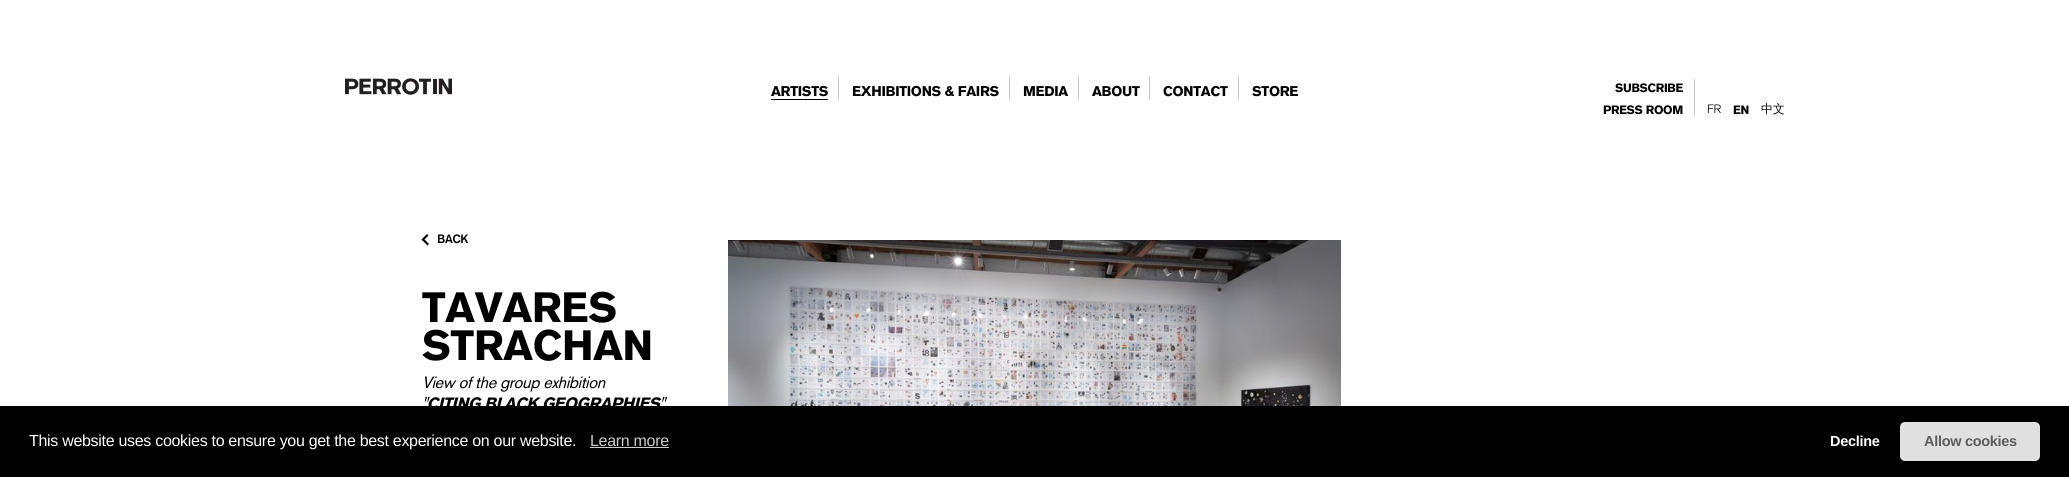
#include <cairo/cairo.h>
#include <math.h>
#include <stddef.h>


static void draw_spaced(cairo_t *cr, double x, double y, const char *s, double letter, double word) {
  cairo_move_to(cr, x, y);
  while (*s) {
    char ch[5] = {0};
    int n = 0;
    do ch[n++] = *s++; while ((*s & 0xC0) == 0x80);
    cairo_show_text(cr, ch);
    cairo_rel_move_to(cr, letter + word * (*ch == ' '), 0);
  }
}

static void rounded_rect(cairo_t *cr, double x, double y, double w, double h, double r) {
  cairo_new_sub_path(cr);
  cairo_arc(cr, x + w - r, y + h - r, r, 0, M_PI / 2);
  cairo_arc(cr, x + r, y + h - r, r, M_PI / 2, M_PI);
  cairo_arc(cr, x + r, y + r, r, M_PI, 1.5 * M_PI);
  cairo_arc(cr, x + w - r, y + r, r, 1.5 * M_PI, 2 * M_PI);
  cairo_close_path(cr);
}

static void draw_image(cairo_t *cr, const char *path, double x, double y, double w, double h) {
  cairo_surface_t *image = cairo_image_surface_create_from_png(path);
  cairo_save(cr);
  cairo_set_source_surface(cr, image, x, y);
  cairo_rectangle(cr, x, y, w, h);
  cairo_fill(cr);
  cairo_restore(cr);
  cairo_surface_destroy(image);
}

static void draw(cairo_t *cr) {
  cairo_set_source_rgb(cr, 1, 1, 1);
  cairo_paint(cr);
  draw_image(cr, "images/1.png", 345, 78, 107, 17);
  cairo_set_source_rgb(cr, 201 / 255.0, 201 / 255.0, 201 / 255.0);
  cairo_rectangle(cr, 838, 76, 1, 24);
  cairo_fill(cr);
  cairo_set_source_rgb(cr, 0, 0, 0);
  cairo_rectangle(cr, 771, 99, 57, 1);
  cairo_fill(cr);
  cairo_set_source_rgb(cr, 201 / 255.0, 201 / 255.0, 201 / 255.0);
  cairo_rectangle(cr, 1009, 76, 1, 24);
  cairo_fill(cr);
  cairo_rectangle(cr, 1078, 76, 1, 24);
  cairo_fill(cr);
  cairo_rectangle(cr, 1149, 76, 1, 24);
  cairo_fill(cr);
  cairo_rectangle(cr, 1238, 76, 1, 24);
  cairo_fill(cr);
  cairo_rectangle(cr, 1694, 79, 1, 37);
  cairo_fill(cr);
  cairo_set_source_rgb(cr, 0, 0, 0);
  cairo_new_path(cr);
  cairo_move_to(cr, 423.5, 238.5);
  cairo_line_to(cr, 429, 244);
  cairo_line_to(cr, 427.5, 245.5);
  cairo_line_to(cr, 422, 240);
  cairo_close_path(cr);
  cairo_fill(cr);
  cairo_new_path(cr);
  cairo_move_to(cr, 421.5, 239.5);
  cairo_line_to(cr, 427, 234);
  cairo_line_to(cr, 428.5, 235.5);
  cairo_line_to(cr, 423, 241);
  cairo_close_path(cr);
  cairo_fill(cr);
  draw_image(cr, "images/2.png", 728, 240, 613, 166);
  cairo_rectangle(cr, 0, 406, 2069, 71);
  cairo_fill(cr);
  cairo_set_source_rgb(cr, 204 / 255.0, 204 / 255.0, 204 / 255.0);
  cairo_rectangle(cr, 590, 447, 79, 1);
  cairo_fill(cr);
  cairo_set_source_rgb(cr, 224 / 255.0, 224 / 255.0, 224 / 255.0);
  rounded_rect(cr, 1900, 422, 140, 39, 5);
  cairo_fill(cr);
  cairo_select_font_face(cr, "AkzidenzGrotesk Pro", CAIRO_FONT_SLANT_NORMAL, CAIRO_FONT_WEIGHT_BOLD);
  cairo_set_font_size(cr, 14);
  cairo_set_source_rgb(cr, 0, 0, 0);
  draw_spaced(cr, 771, 96, "ARTISTS", -0.3, 0);
  draw_spaced(cr, 852, 96, "EXHIBITIONS & FAIRS", -0.3, 0);
  draw_spaced(cr, 1023, 96, "MEDIA", -0.3, 0);
  draw_spaced(cr, 1092, 96, "ABOUT", -0.3, 0);
  draw_spaced(cr, 1163, 96, "CONTACT", -0.3, 0);
  draw_spaced(cr, 1252, 96, "STORE", -0.3, 0);
  cairo_set_font_size(cr, 12);
  draw_spaced(cr, 1615, 92, "SUBSCRIBE", -0.3, 0);
  draw_spaced(cr, 1603, 114, "PRESS ROOM", -0.3, 0);
  cairo_select_font_face(cr, "AkzidenzGrotesk Pro Light", CAIRO_FONT_SLANT_NORMAL, CAIRO_FONT_WEIGHT_NORMAL);
  draw_spaced(cr, 1707, 113, "FR", -0.3, 0);
  cairo_select_font_face(cr, "AkzidenzGrotesk Pro", CAIRO_FONT_SLANT_NORMAL, CAIRO_FONT_WEIGHT_BOLD);
  draw_spaced(cr, 1733, 114, "EN", -0.3, 0);
  cairo_select_font_face(cr, "WenQuanYi Zen Hei Medium", CAIRO_FONT_SLANT_NORMAL, CAIRO_FONT_WEIGHT_NORMAL);
  draw_spaced(cr, 1761, 113, "中文", -0.3, 0);
  cairo_select_font_face(cr, "AkzidenzGrotesk Pro Medium", CAIRO_FONT_SLANT_NORMAL, CAIRO_FONT_WEIGHT_NORMAL);
  draw_spaced(cr, 437, 243, "BACK", -0.3, 0);
  cairo_select_font_face(cr, "AkzidenzGrotesk Pro", CAIRO_FONT_SLANT_NORMAL, CAIRO_FONT_WEIGHT_BOLD);
  cairo_set_font_size(cr, 42);
  draw_spaced(cr, 422, 322, "TAVARES", -0.3, 0);
  draw_spaced(cr, 422, 360, "STRACHAN", -0.3, 0);
  cairo_select_font_face(cr, "AkzidenzGrotesk Pro", CAIRO_FONT_SLANT_ITALIC, CAIRO_FONT_WEIGHT_NORMAL);
  cairo_set_font_size(cr, 16.25);
  draw_spaced(cr, 422, 388, "View of the group exhibition", -0.3, 0);
  cairo_select_font_face(cr, "AkzidenzGrotesk Pro", CAIRO_FONT_SLANT_ITALIC, CAIRO_FONT_WEIGHT_BOLD);
  draw_spaced(cr, 422, 409, "\"CITING BLACK GEOGRAPHIES\"", -0.3, 0);
  cairo_select_font_face(cr, "Liberation Sans", CAIRO_FONT_SLANT_NORMAL, CAIRO_FONT_WEIGHT_NORMAL);
  cairo_set_font_size(cr, 16);
  cairo_set_source_rgb(cr, 1, 1, 1);
  draw_spaced(cr, 29, 446, "This website uses cookies to ensure you get the best experience on our website.", -0.3, 0);
  cairo_set_source_rgb(cr, 204 / 255.0, 204 / 255.0, 204 / 255.0);
  draw_spaced(cr, 590, 446, "Learn more", -0.3, 0);
  cairo_select_font_face(cr, "Liberation Sans", CAIRO_FONT_SLANT_NORMAL, CAIRO_FONT_WEIGHT_BOLD);
  cairo_set_font_size(cr, 14.5);
  cairo_set_source_rgb(cr, 1, 1, 1);
  draw_spaced(cr, 1830, 446, "Decline", -0.3, 0);
  cairo_set_source_rgb(cr, 94 / 255.0, 92 / 255.0, 92 / 255.0);
  draw_spaced(cr, 1924, 446, "Allow cookies", -0.3, 0);
}

int main(void) {
  cairo_surface_t *surface = cairo_image_surface_create(CAIRO_FORMAT_RGB24, 2069, 477);
  cairo_t *cr = cairo_create(surface);
  cairo_font_options_t *options = cairo_font_options_create();
  cairo_font_options_set_hint_metrics(options, CAIRO_HINT_METRICS_OFF);
  cairo_font_options_set_hint_style(options, CAIRO_HINT_STYLE_NONE);
  cairo_set_font_options(cr, options);
  cairo_set_miter_limit(cr, 4);
  draw(cr);
  cairo_surface_write_to_png(surface, "out.png");
  cairo_font_options_destroy(options);
  cairo_destroy(cr);
  cairo_surface_destroy(surface);
  return 0;
}
